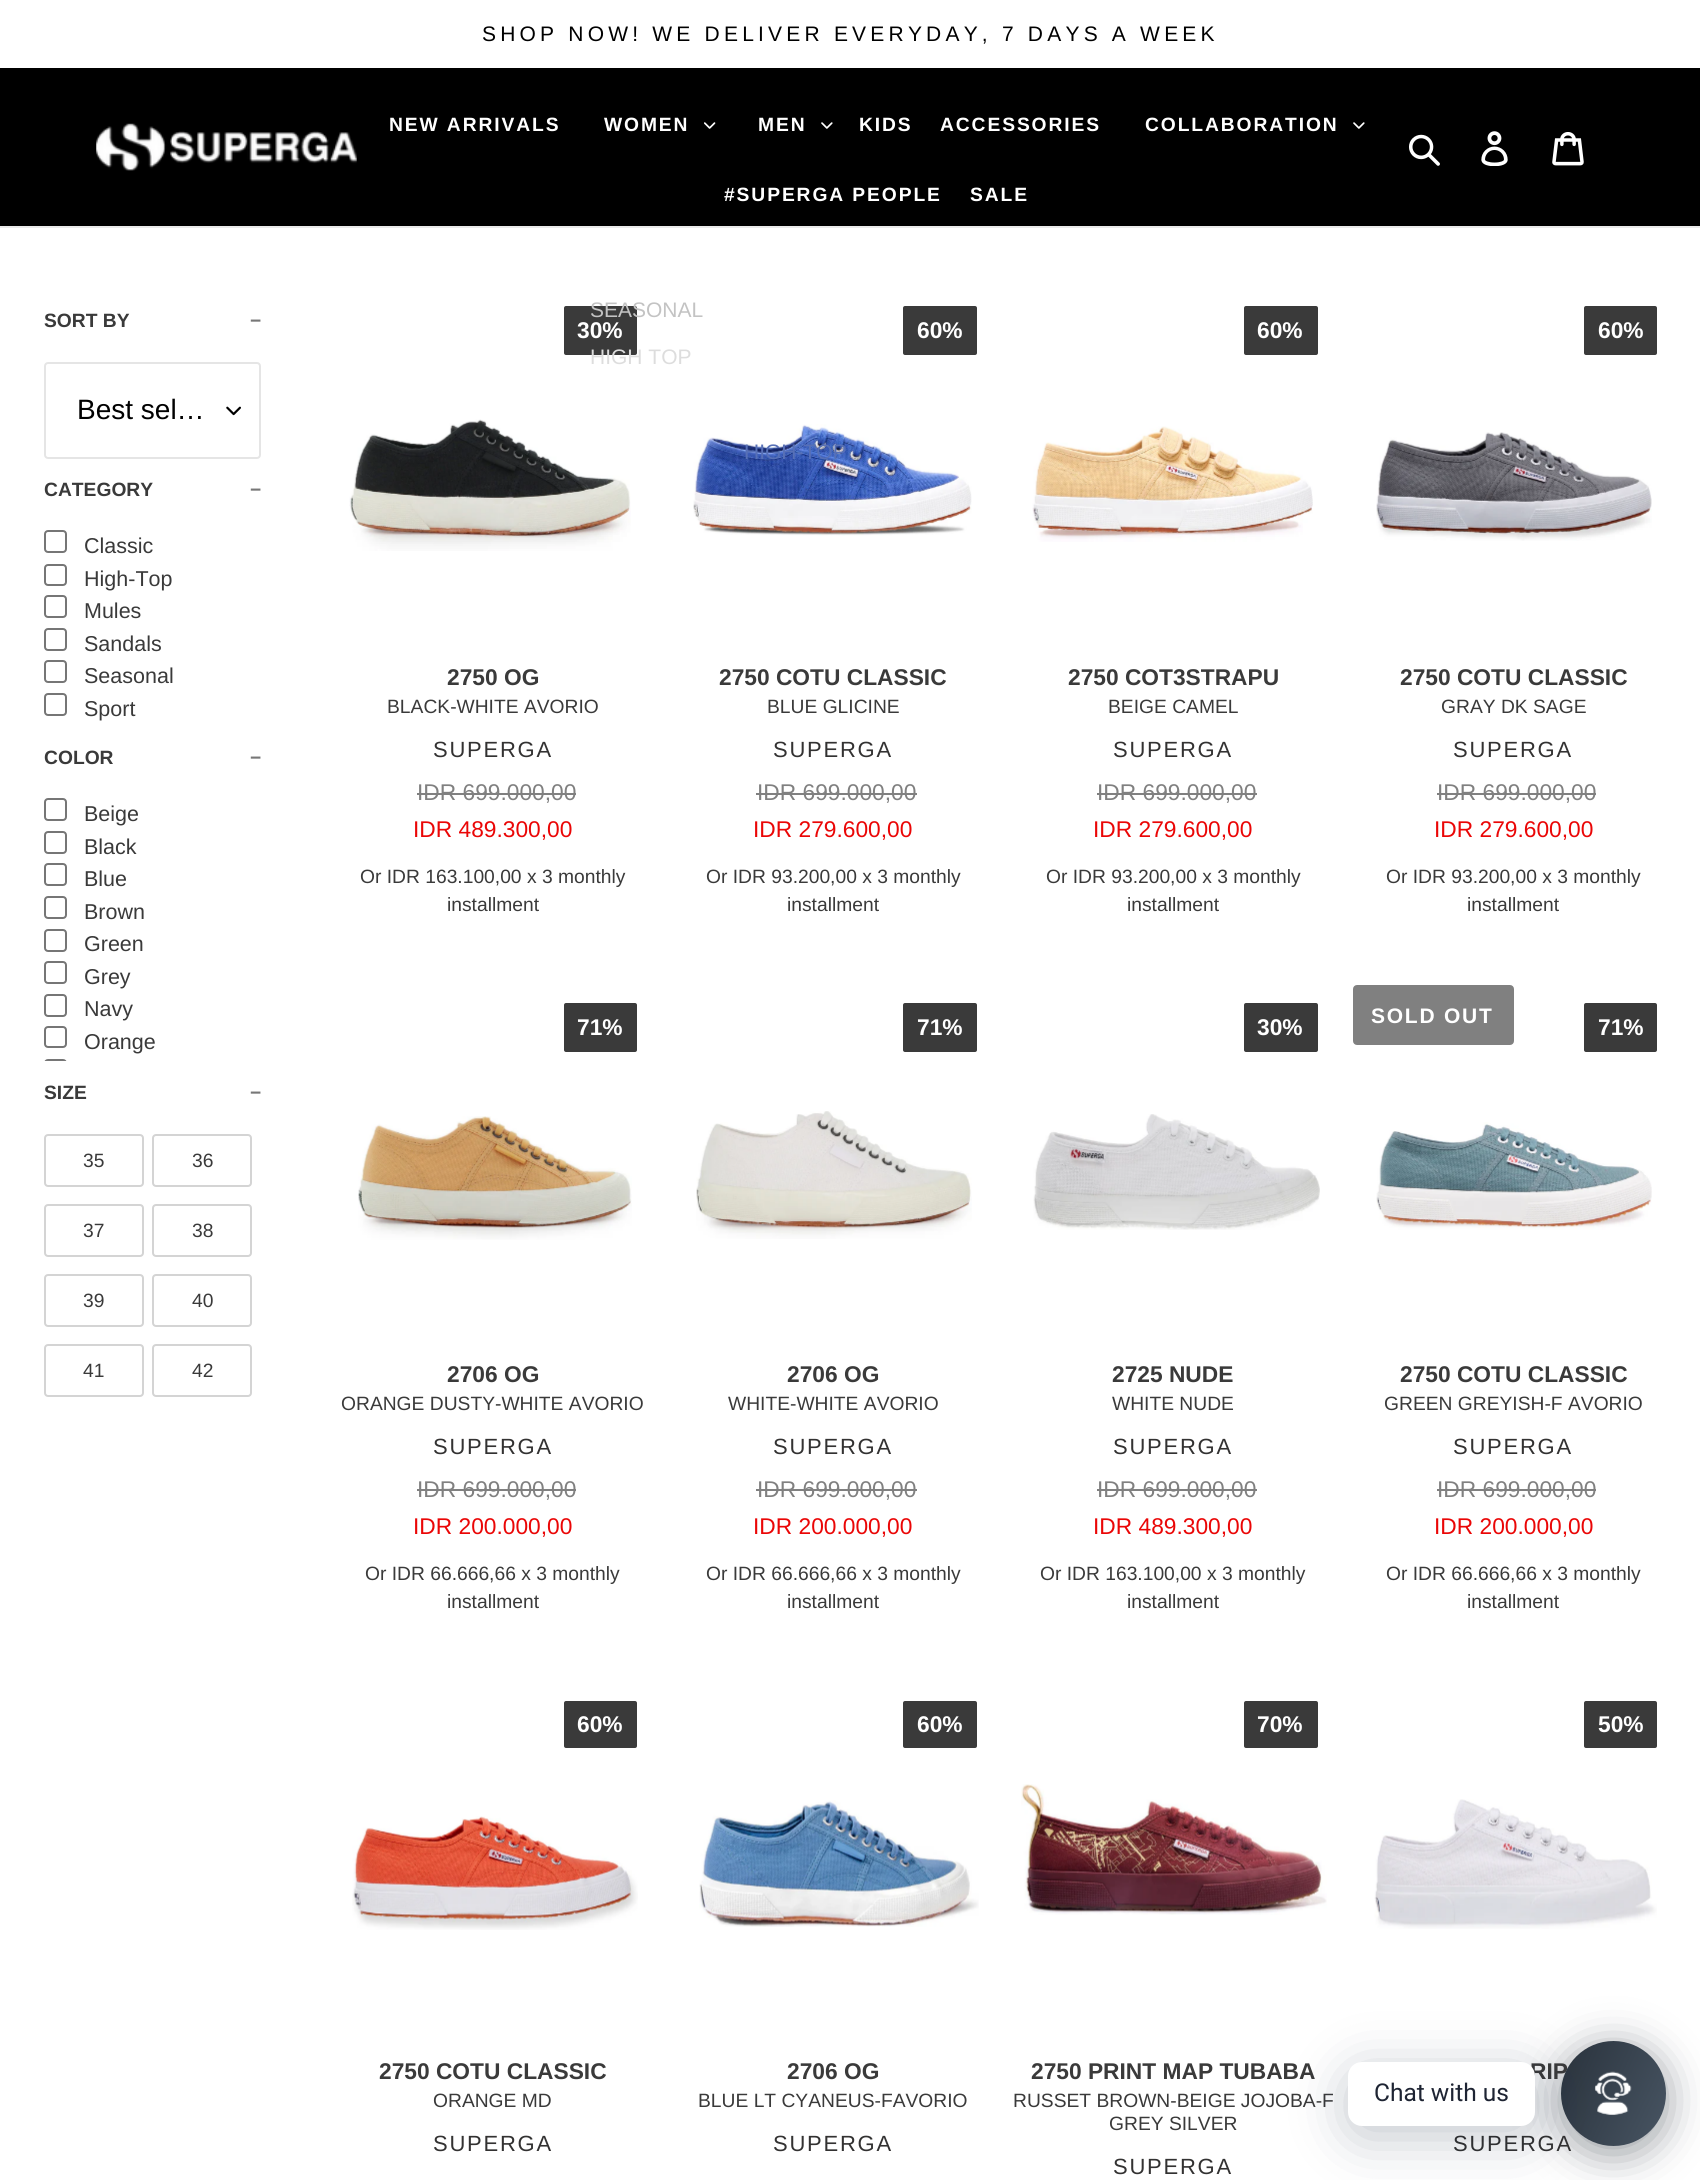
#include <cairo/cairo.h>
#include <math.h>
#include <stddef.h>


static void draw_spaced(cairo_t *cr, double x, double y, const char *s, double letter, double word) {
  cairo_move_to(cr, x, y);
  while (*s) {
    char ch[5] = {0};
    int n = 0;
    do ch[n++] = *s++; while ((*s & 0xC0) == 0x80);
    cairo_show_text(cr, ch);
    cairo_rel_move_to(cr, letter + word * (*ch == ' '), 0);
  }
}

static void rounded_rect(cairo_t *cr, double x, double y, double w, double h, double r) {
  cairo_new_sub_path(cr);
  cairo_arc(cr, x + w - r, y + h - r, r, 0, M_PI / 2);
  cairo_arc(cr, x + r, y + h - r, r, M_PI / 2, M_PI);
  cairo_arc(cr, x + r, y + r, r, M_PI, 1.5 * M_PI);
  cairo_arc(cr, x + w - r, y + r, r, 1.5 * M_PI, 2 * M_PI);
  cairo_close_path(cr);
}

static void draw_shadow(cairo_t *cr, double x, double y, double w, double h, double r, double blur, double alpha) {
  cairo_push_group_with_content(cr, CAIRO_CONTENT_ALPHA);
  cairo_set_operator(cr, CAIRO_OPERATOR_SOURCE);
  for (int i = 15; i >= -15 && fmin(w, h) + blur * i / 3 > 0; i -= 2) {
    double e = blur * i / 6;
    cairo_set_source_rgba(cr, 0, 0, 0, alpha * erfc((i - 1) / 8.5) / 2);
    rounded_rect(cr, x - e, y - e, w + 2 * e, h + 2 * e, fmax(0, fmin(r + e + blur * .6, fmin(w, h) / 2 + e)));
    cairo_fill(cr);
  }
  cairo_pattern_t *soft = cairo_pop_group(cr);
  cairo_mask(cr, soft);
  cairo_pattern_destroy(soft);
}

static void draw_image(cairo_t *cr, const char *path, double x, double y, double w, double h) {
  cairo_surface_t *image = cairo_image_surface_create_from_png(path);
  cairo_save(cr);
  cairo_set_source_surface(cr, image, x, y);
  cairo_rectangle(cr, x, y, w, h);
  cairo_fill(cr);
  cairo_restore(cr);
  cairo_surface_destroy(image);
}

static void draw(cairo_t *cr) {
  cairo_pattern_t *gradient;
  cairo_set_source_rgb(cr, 1, 1, 1);
  cairo_paint(cr);
  cairo_set_source_rgb(cr, 0, 0, 0);
  cairo_rectangle(cr, 0, 68, 1700, 158);
  cairo_fill(cr);
  draw_image(cr, "images/1.png", 96, 123, 261, 48);
  draw_image(cr, "images/2.png", 704, 122, 12, 7);
  draw_image(cr, "images/3.png", 821, 122, 12, 7);
  draw_image(cr, "images/3.png", 1353, 122, 12, 7);
  draw_image(cr, "images/4.png", 1409, 134, 31, 32);
  draw_image(cr, "images/5.png", 1481, 131, 27, 35);
  draw_image(cr, "images/6.png", 1552, 132, 32, 34);
  cairo_set_source_rgb(cr, 235 / 255.0, 235 / 255.0, 235 / 255.0);
  cairo_rectangle(cr, 0, 226, 1700, 2);
  cairo_fill(cr);
  draw_image(cr, "images/7.png", 226, 406, 15, 10);
  rounded_rect(cr, 45, 363, 215, 95, 3);
  cairo_set_source_rgb(cr, 229 / 255.0, 229 / 255.0, 229 / 255.0);
  cairo_stroke(cr);
  rounded_rect(cr, 45, 531, 21, 21, 3);
  cairo_set_source_rgb(cr, 118 / 255.0, 118 / 255.0, 118 / 255.0);
  cairo_stroke(cr);
  rounded_rect(cr, 45, 565, 21, 20, 3);
  cairo_stroke(cr);
  rounded_rect(cr, 45, 596, 21, 21, 3);
  cairo_stroke(cr);
  rounded_rect(cr, 45, 629, 21, 21, 3);
  cairo_stroke(cr);
  rounded_rect(cr, 45, 661, 21, 21, 3);
  cairo_stroke(cr);
  rounded_rect(cr, 45, 694, 21, 21, 3);
  cairo_stroke(cr);
  rounded_rect(cr, 45, 799, 21, 21, 3);
  cairo_stroke(cr);
  rounded_rect(cr, 45, 832, 21, 21, 3);
  cairo_stroke(cr);
  rounded_rect(cr, 45, 864, 21, 21, 3);
  cairo_stroke(cr);
  rounded_rect(cr, 45, 897, 21, 21, 3);
  cairo_stroke(cr);
  rounded_rect(cr, 45, 930, 21, 21, 3);
  cairo_stroke(cr);
  rounded_rect(cr, 45, 962, 21, 21, 3);
  cairo_stroke(cr);
  rounded_rect(cr, 45, 995, 21, 21, 3);
  cairo_stroke(cr);
  rounded_rect(cr, 45, 1027, 21, 20, 3);
  cairo_stroke(cr);
  cairo_save(cr);
  cairo_rectangle(cr, 26, 798, 252, 263);
  cairo_clip(cr);
  rounded_rect(cr, 45, 1060, 21, 21, 3);
  cairo_stroke(cr);
  cairo_restore(cr);
  rounded_rect(cr, 45, 1135, 98, 51, 3);
  cairo_set_source_rgb(cr, 212 / 255.0, 212 / 255.0, 212 / 255.0);
  cairo_stroke(cr);
  rounded_rect(cr, 153, 1135, 98, 51, 3);
  cairo_stroke(cr);
  rounded_rect(cr, 45, 1205, 98, 51, 3);
  cairo_stroke(cr);
  rounded_rect(cr, 153, 1205, 98, 51, 3);
  cairo_stroke(cr);
  rounded_rect(cr, 45, 1275, 98, 51, 3);
  cairo_stroke(cr);
  rounded_rect(cr, 153, 1275, 98, 51, 3);
  cairo_stroke(cr);
  rounded_rect(cr, 45, 1345, 98, 51, 3);
  cairo_stroke(cr);
  rounded_rect(cr, 153, 1345, 98, 51, 3);
  cairo_stroke(cr);
  cairo_set_source_rgb(cr, 58 / 255.0, 58 / 255.0, 58 / 255.0);
  rounded_rect(cr, 564, 306, 73, 49, 2);
  cairo_fill(cr);
  draw_image(cr, "images/8.png", 349, 419, 282, 132);
  cairo_set_source_rgb(cr, 128 / 255.0, 128 / 255.0, 128 / 255.0);
  cairo_rectangle(cr, 417, 793, 159, 2);
  cairo_fill(cr);
  cairo_set_source_rgb(cr, 58 / 255.0, 58 / 255.0, 58 / 255.0);
  rounded_rect(cr, 903, 306, 74, 49, 2);
  cairo_fill(cr);
  draw_image(cr, "images/9.png", 693, 424, 279, 112);
  cairo_set_source_rgb(cr, 128 / 255.0, 128 / 255.0, 128 / 255.0);
  cairo_rectangle(cr, 756, 793, 161, 2);
  cairo_fill(cr);
  cairo_set_source_rgb(cr, 58 / 255.0, 58 / 255.0, 58 / 255.0);
  rounded_rect(cr, 1244, 306, 74, 49, 2);
  cairo_fill(cr);
  draw_image(cr, "images/10.png", 1032, 426, 281, 116);
  cairo_set_source_rgb(cr, 128 / 255.0, 128 / 255.0, 128 / 255.0);
  cairo_rectangle(cr, 1097, 793, 160, 2);
  cairo_fill(cr);
  cairo_set_source_rgb(cr, 58 / 255.0, 58 / 255.0, 58 / 255.0);
  rounded_rect(cr, 1584, 306, 73, 49, 2);
  cairo_fill(cr);
  draw_image(cr, "images/11.png", 1376, 432, 276, 109);
  cairo_set_source_rgb(cr, 128 / 255.0, 128 / 255.0, 128 / 255.0);
  cairo_rectangle(cr, 1437, 793, 159, 2);
  cairo_fill(cr);
  cairo_set_source_rgb(cr, 58 / 255.0, 58 / 255.0, 58 / 255.0);
  rounded_rect(cr, 564, 1003, 73, 49, 2);
  cairo_fill(cr);
  draw_image(cr, "images/12.png", 358, 1116, 274, 124);
  cairo_set_source_rgb(cr, 128 / 255.0, 128 / 255.0, 128 / 255.0);
  cairo_rectangle(cr, 417, 1489, 159, 2);
  cairo_fill(cr);
  cairo_set_source_rgb(cr, 58 / 255.0, 58 / 255.0, 58 / 255.0);
  rounded_rect(cr, 903, 1003, 74, 49, 2);
  cairo_fill(cr);
  draw_image(cr, "images/13.png", 696, 1111, 276, 128);
  cairo_set_source_rgb(cr, 128 / 255.0, 128 / 255.0, 128 / 255.0);
  cairo_rectangle(cr, 756, 1489, 161, 2);
  cairo_fill(cr);
  cairo_set_source_rgb(cr, 58 / 255.0, 58 / 255.0, 58 / 255.0);
  rounded_rect(cr, 1244, 1003, 74, 49, 2);
  cairo_fill(cr);
  draw_image(cr, "images/14.png", 1033, 1114, 287, 116);
  cairo_set_source_rgb(cr, 128 / 255.0, 128 / 255.0, 128 / 255.0);
  cairo_rectangle(cr, 1097, 1489, 160, 2);
  cairo_fill(cr);
  rounded_rect(cr, 1354, 986, 159, 58, 3);
  cairo_fill_preserve(cr);
  cairo_stroke(cr);
  cairo_set_source_rgb(cr, 58 / 255.0, 58 / 255.0, 58 / 255.0);
  rounded_rect(cr, 1584, 1003, 73, 49, 2);
  cairo_fill(cr);
  draw_image(cr, "images/15.png", 1376, 1122, 276, 108);
  cairo_set_source_rgb(cr, 128 / 255.0, 128 / 255.0, 128 / 255.0);
  cairo_rectangle(cr, 1437, 1489, 159, 2);
  cairo_fill(cr);
  cairo_set_source_rgb(cr, 58 / 255.0, 58 / 255.0, 58 / 255.0);
  rounded_rect(cr, 564, 1701, 73, 47, 2);
  cairo_fill(cr);
  draw_image(cr, "images/16.png", 352, 1816, 286, 114);
  rounded_rect(cr, 903, 1701, 74, 47, 2);
  cairo_fill(cr);
  draw_image(cr, "images/17.png", 699, 1800, 280, 127);
  rounded_rect(cr, 1244, 1701, 74, 47, 2);
  cairo_fill(cr);
  draw_image(cr, "images/18.png", 1021, 1784, 306, 131);
  rounded_rect(cr, 1584, 1701, 73, 47, 2);
  cairo_fill(cr);
  draw_image(cr, "images/19.png", 1374, 1799, 283, 130);
  cairo_set_source_rgb(cr, 41 / 255.0, 50 / 255.0, 60 / 255.0);
  draw_shadow(cr, 1561, 2048, 105, 105, 52.5, 21, 0.5);
  cairo_select_font_face(cr, "Liberation Sans", CAIRO_FONT_SLANT_NORMAL, CAIRO_FONT_WEIGHT_NORMAL);
  cairo_set_font_size(cr, 21);
  cairo_set_source_rgb(cr, 0, 0, 0);
  draw_spaced(cr, 482, 41, "SHOP NOW! WE DELIVER EVERYDAY, 7 DAYS A WEEK", 4.2, 0);
  cairo_select_font_face(cr, "Liberation Sans", CAIRO_FONT_SLANT_NORMAL, CAIRO_FONT_WEIGHT_BOLD);
  cairo_set_font_size(cr, 19.25);
  cairo_set_source_rgb(cr, 1, 1, 1);
  draw_spaced(cr, 389, 131, "NEW ARRIVALS", 1.9, 0);
  draw_spaced(cr, 604, 131, "WOMEN", 1.9, 0);
  cairo_select_font_face(cr, "Liberation Sans", CAIRO_FONT_SLANT_NORMAL, CAIRO_FONT_WEIGHT_NORMAL);
  cairo_set_font_size(cr, 21);
  cairo_set_source_rgb(cr, 195 / 255.0, 195 / 255.0, 195 / 255.0);
  cairo_move_to(cr, 590, 317);
  cairo_show_text(cr, "SEASONAL");
  cairo_set_source_rgb(cr, 221 / 255.0, 221 / 255.0, 221 / 255.0);
  cairo_move_to(cr, 590, 364);
  cairo_show_text(cr, "HIGH TOP");
  cairo_select_font_face(cr, "Liberation Sans", CAIRO_FONT_SLANT_NORMAL, CAIRO_FONT_WEIGHT_BOLD);
  cairo_set_font_size(cr, 19.25);
  cairo_set_source_rgb(cr, 1, 1, 1);
  draw_spaced(cr, 758, 131, "MEN", 1.9, 0);
  cairo_select_font_face(cr, "Liberation Sans", CAIRO_FONT_SLANT_NORMAL, CAIRO_FONT_WEIGHT_NORMAL);
  cairo_set_font_size(cr, 21);
  cairo_set_source_rgb(cr, 87 / 255.0, 112 / 255.0, 182 / 255.0);
  cairo_move_to(cr, 744, 459);
  cairo_show_text(cr, "HIGH-TOP");
  cairo_select_font_face(cr, "Liberation Sans", CAIRO_FONT_SLANT_NORMAL, CAIRO_FONT_WEIGHT_BOLD);
  cairo_set_font_size(cr, 19.25);
  cairo_set_source_rgb(cr, 1, 1, 1);
  draw_spaced(cr, 859, 131, "KIDS", 1.9, 0);
  draw_spaced(cr, 940, 131, "ACCESSORIES", 1.9, 0);
  draw_spaced(cr, 1145, 131, "COLLABORATION", 1.9, 0);
  draw_spaced(cr, 724, 201, "#SUPERGA PEOPLE", 1.9, 0);
  draw_spaced(cr, 970, 201, "SALE", 1.9, 0);
  cairo_set_source_rgb(cr, 58 / 255.0, 58 / 255.0, 58 / 255.0);
  cairo_move_to(cr, 44, 327);
  cairo_show_text(cr, "SORT BY");
  cairo_set_source_rgb(cr, 119 / 255.0, 119 / 255.0, 119 / 255.0);
  cairo_move_to(cr, 250, 327);
  cairo_show_text(cr, "−");
  cairo_select_font_face(cr, "Liberation Sans", CAIRO_FONT_SLANT_NORMAL, CAIRO_FONT_WEIGHT_NORMAL);
  cairo_set_font_size(cr, 28);
  cairo_set_source_rgb(cr, 0, 0, 0);
  cairo_move_to(cr, 77, 419);
  cairo_show_text(cr, "Best sel…");
  cairo_select_font_face(cr, "Liberation Sans", CAIRO_FONT_SLANT_NORMAL, CAIRO_FONT_WEIGHT_BOLD);
  cairo_set_font_size(cr, 19.25);
  cairo_set_source_rgb(cr, 58 / 255.0, 58 / 255.0, 58 / 255.0);
  cairo_move_to(cr, 44, 496);
  cairo_show_text(cr, "CATEGORY");
  cairo_set_source_rgb(cr, 119 / 255.0, 119 / 255.0, 119 / 255.0);
  cairo_move_to(cr, 250, 496);
  cairo_show_text(cr, "−");
  cairo_select_font_face(cr, "Liberation Sans", CAIRO_FONT_SLANT_NORMAL, CAIRO_FONT_WEIGHT_NORMAL);
  cairo_set_font_size(cr, 21.5);
  cairo_set_source_rgb(cr, 58 / 255.0, 58 / 255.0, 58 / 255.0);
  cairo_move_to(cr, 84, 553);
  cairo_show_text(cr, "Classic");
  cairo_move_to(cr, 84, 586);
  cairo_show_text(cr, "High-Top");
  cairo_move_to(cr, 84, 618);
  cairo_show_text(cr, "Mules");
  cairo_move_to(cr, 84, 651);
  cairo_show_text(cr, "Sandals");
  cairo_move_to(cr, 84, 683);
  cairo_show_text(cr, "Seasonal");
  cairo_move_to(cr, 84, 716);
  cairo_show_text(cr, "Sport");
  cairo_select_font_face(cr, "Liberation Sans", CAIRO_FONT_SLANT_NORMAL, CAIRO_FONT_WEIGHT_BOLD);
  cairo_set_font_size(cr, 19.25);
  cairo_move_to(cr, 44, 764);
  cairo_show_text(cr, "COLOR");
  cairo_set_source_rgb(cr, 119 / 255.0, 119 / 255.0, 119 / 255.0);
  cairo_move_to(cr, 250, 764);
  cairo_show_text(cr, "−");
  cairo_select_font_face(cr, "Liberation Sans", CAIRO_FONT_SLANT_NORMAL, CAIRO_FONT_WEIGHT_NORMAL);
  cairo_set_font_size(cr, 21.5);
  cairo_set_source_rgb(cr, 58 / 255.0, 58 / 255.0, 58 / 255.0);
  cairo_move_to(cr, 84, 821);
  cairo_show_text(cr, "Beige");
  cairo_move_to(cr, 84, 854);
  cairo_show_text(cr, "Black");
  cairo_move_to(cr, 84, 886);
  cairo_show_text(cr, "Blue");
  cairo_move_to(cr, 84, 919);
  cairo_show_text(cr, "Brown");
  cairo_move_to(cr, 84, 951);
  cairo_show_text(cr, "Green");
  cairo_move_to(cr, 84, 984);
  cairo_show_text(cr, "Grey");
  cairo_move_to(cr, 84, 1016);
  cairo_show_text(cr, "Navy");
  cairo_move_to(cr, 84, 1049);
  cairo_show_text(cr, "Orange");
  cairo_select_font_face(cr, "Liberation Sans", CAIRO_FONT_SLANT_NORMAL, CAIRO_FONT_WEIGHT_BOLD);
  cairo_set_font_size(cr, 19.25);
  cairo_move_to(cr, 44, 1099);
  cairo_show_text(cr, "SIZE");
  cairo_set_source_rgb(cr, 119 / 255.0, 119 / 255.0, 119 / 255.0);
  cairo_move_to(cr, 250, 1099);
  cairo_show_text(cr, "−");
  cairo_select_font_face(cr, "Liberation Sans", CAIRO_FONT_SLANT_NORMAL, CAIRO_FONT_WEIGHT_NORMAL);
  cairo_set_source_rgb(cr, 58 / 255.0, 58 / 255.0, 58 / 255.0);
  cairo_move_to(cr, 83, 1167);
  cairo_show_text(cr, "35");
  cairo_move_to(cr, 192, 1167);
  cairo_show_text(cr, "36");
  cairo_move_to(cr, 83, 1237);
  cairo_show_text(cr, "37");
  cairo_move_to(cr, 192, 1237);
  cairo_show_text(cr, "38");
  cairo_move_to(cr, 83, 1307);
  cairo_show_text(cr, "39");
  cairo_move_to(cr, 192, 1307);
  cairo_show_text(cr, "40");
  cairo_move_to(cr, 83, 1377);
  cairo_show_text(cr, "41");
  cairo_move_to(cr, 192, 1377);
  cairo_show_text(cr, "42");
  cairo_select_font_face(cr, "Liberation Sans", CAIRO_FONT_SLANT_NORMAL, CAIRO_FONT_WEIGHT_BOLD);
  cairo_set_font_size(cr, 22.75);
  cairo_set_source_rgb(cr, 1, 1, 1);
  cairo_move_to(cr, 577, 338);
  cairo_show_text(cr, "30%");
  cairo_set_source_rgb(cr, 58 / 255.0, 58 / 255.0, 58 / 255.0);
  cairo_move_to(cr, 447, 685);
  cairo_show_text(cr, "2750 OG");
  cairo_select_font_face(cr, "Liberation Sans", CAIRO_FONT_SLANT_NORMAL, CAIRO_FONT_WEIGHT_NORMAL);
  cairo_set_font_size(cr, 19.25);
  cairo_move_to(cr, 387, 713);
  cairo_show_text(cr, "BLACK-WHITE AVORIO");
  cairo_set_font_size(cr, 22);
  cairo_set_source_rgb(cr, 51 / 255.0, 50 / 255.0, 50 / 255.0);
  draw_spaced(cr, 433, 757, "SUPERGA", 1.75, 0);
  cairo_set_font_size(cr, 22.75);
  cairo_set_source_rgb(cr, 128 / 255.0, 128 / 255.0, 128 / 255.0);
  cairo_move_to(cr, 417, 800);
  cairo_show_text(cr, "IDR 699.000,00");
  cairo_set_source_rgb(cr, 234 / 255.0, 6 / 255.0, 6 / 255.0);
  cairo_move_to(cr, 413, 837);
  cairo_show_text(cr, "IDR 489.300,00");
  cairo_set_font_size(cr, 19.25);
  cairo_set_source_rgb(cr, 58 / 255.0, 58 / 255.0, 58 / 255.0);
  cairo_move_to(cr, 360, 883);
  cairo_show_text(cr, "Or IDR 163.100,00 x 3 monthly");
  cairo_move_to(cr, 447, 911);
  cairo_show_text(cr, "installment");
  cairo_select_font_face(cr, "Liberation Sans", CAIRO_FONT_SLANT_NORMAL, CAIRO_FONT_WEIGHT_BOLD);
  cairo_set_font_size(cr, 22.75);
  cairo_set_source_rgb(cr, 1, 1, 1);
  cairo_move_to(cr, 917, 338);
  cairo_show_text(cr, "60%");
  cairo_set_source_rgb(cr, 58 / 255.0, 58 / 255.0, 58 / 255.0);
  cairo_move_to(cr, 719, 685);
  cairo_show_text(cr, "2750 COTU CLASSIC");
  cairo_select_font_face(cr, "Liberation Sans", CAIRO_FONT_SLANT_NORMAL, CAIRO_FONT_WEIGHT_NORMAL);
  cairo_set_font_size(cr, 19.25);
  cairo_move_to(cr, 767, 713);
  cairo_show_text(cr, "BLUE GLICINE");
  cairo_set_font_size(cr, 22);
  cairo_set_source_rgb(cr, 51 / 255.0, 50 / 255.0, 50 / 255.0);
  draw_spaced(cr, 773, 757, "SUPERGA", 1.75, 0);
  cairo_set_font_size(cr, 22.75);
  cairo_set_source_rgb(cr, 128 / 255.0, 128 / 255.0, 128 / 255.0);
  cairo_move_to(cr, 757, 800);
  cairo_show_text(cr, "IDR 699.000,00");
  cairo_set_source_rgb(cr, 234 / 255.0, 6 / 255.0, 6 / 255.0);
  cairo_move_to(cr, 753, 837);
  cairo_show_text(cr, "IDR 279.600,00");
  cairo_set_font_size(cr, 19.25);
  cairo_set_source_rgb(cr, 58 / 255.0, 58 / 255.0, 58 / 255.0);
  cairo_move_to(cr, 706, 883);
  cairo_show_text(cr, "Or IDR 93.200,00 x 3 monthly");
  cairo_move_to(cr, 787, 911);
  cairo_show_text(cr, "installment");
  cairo_select_font_face(cr, "Liberation Sans", CAIRO_FONT_SLANT_NORMAL, CAIRO_FONT_WEIGHT_BOLD);
  cairo_set_font_size(cr, 22.75);
  cairo_set_source_rgb(cr, 1, 1, 1);
  cairo_move_to(cr, 1257, 338);
  cairo_show_text(cr, "60%");
  cairo_set_source_rgb(cr, 58 / 255.0, 58 / 255.0, 58 / 255.0);
  cairo_move_to(cr, 1068, 685);
  cairo_show_text(cr, "2750 COT3STRAPU");
  cairo_select_font_face(cr, "Liberation Sans", CAIRO_FONT_SLANT_NORMAL, CAIRO_FONT_WEIGHT_NORMAL);
  cairo_set_font_size(cr, 19.25);
  cairo_move_to(cr, 1108, 713);
  cairo_show_text(cr, "BEIGE CAMEL");
  cairo_set_font_size(cr, 22);
  cairo_set_source_rgb(cr, 51 / 255.0, 50 / 255.0, 50 / 255.0);
  draw_spaced(cr, 1113, 757, "SUPERGA", 1.75, 0);
  cairo_set_font_size(cr, 22.75);
  cairo_set_source_rgb(cr, 128 / 255.0, 128 / 255.0, 128 / 255.0);
  cairo_move_to(cr, 1097, 800);
  cairo_show_text(cr, "IDR 699.000,00");
  cairo_set_source_rgb(cr, 234 / 255.0, 6 / 255.0, 6 / 255.0);
  cairo_move_to(cr, 1093, 837);
  cairo_show_text(cr, "IDR 279.600,00");
  cairo_set_font_size(cr, 19.25);
  cairo_set_source_rgb(cr, 58 / 255.0, 58 / 255.0, 58 / 255.0);
  cairo_move_to(cr, 1046, 883);
  cairo_show_text(cr, "Or IDR 93.200,00 x 3 monthly");
  cairo_move_to(cr, 1127, 911);
  cairo_show_text(cr, "installment");
  cairo_select_font_face(cr, "Liberation Sans", CAIRO_FONT_SLANT_NORMAL, CAIRO_FONT_WEIGHT_BOLD);
  cairo_set_font_size(cr, 22.75);
  cairo_set_source_rgb(cr, 1, 1, 1);
  cairo_move_to(cr, 1598, 338);
  cairo_show_text(cr, "60%");
  cairo_set_source_rgb(cr, 58 / 255.0, 58 / 255.0, 58 / 255.0);
  cairo_move_to(cr, 1400, 685);
  cairo_show_text(cr, "2750 COTU CLASSIC");
  cairo_select_font_face(cr, "Liberation Sans", CAIRO_FONT_SLANT_NORMAL, CAIRO_FONT_WEIGHT_NORMAL);
  cairo_set_font_size(cr, 19.25);
  cairo_move_to(cr, 1441, 713);
  cairo_show_text(cr, "GRAY DK SAGE");
  cairo_set_font_size(cr, 22);
  cairo_set_source_rgb(cr, 51 / 255.0, 50 / 255.0, 50 / 255.0);
  draw_spaced(cr, 1453, 757, "SUPERGA", 1.75, 0);
  cairo_set_font_size(cr, 22.75);
  cairo_set_source_rgb(cr, 128 / 255.0, 128 / 255.0, 128 / 255.0);
  cairo_move_to(cr, 1437, 800);
  cairo_show_text(cr, "IDR 699.000,00");
  cairo_set_source_rgb(cr, 234 / 255.0, 6 / 255.0, 6 / 255.0);
  cairo_move_to(cr, 1434, 837);
  cairo_show_text(cr, "IDR 279.600,00");
  cairo_set_font_size(cr, 19.25);
  cairo_set_source_rgb(cr, 58 / 255.0, 58 / 255.0, 58 / 255.0);
  cairo_move_to(cr, 1386, 883);
  cairo_show_text(cr, "Or IDR 93.200,00 x 3 monthly");
  cairo_move_to(cr, 1467, 911);
  cairo_show_text(cr, "installment");
  cairo_select_font_face(cr, "Liberation Sans", CAIRO_FONT_SLANT_NORMAL, CAIRO_FONT_WEIGHT_BOLD);
  cairo_set_font_size(cr, 22.75);
  cairo_set_source_rgb(cr, 1, 1, 1);
  cairo_move_to(cr, 577, 1035);
  cairo_show_text(cr, "71%");
  cairo_set_source_rgb(cr, 58 / 255.0, 58 / 255.0, 58 / 255.0);
  cairo_move_to(cr, 447, 1382);
  cairo_show_text(cr, "2706 OG");
  cairo_select_font_face(cr, "Liberation Sans", CAIRO_FONT_SLANT_NORMAL, CAIRO_FONT_WEIGHT_NORMAL);
  cairo_set_font_size(cr, 19.25);
  cairo_move_to(cr, 341, 1410);
  cairo_show_text(cr, "ORANGE DUSTY-WHITE AVORIO");
  cairo_set_font_size(cr, 22);
  cairo_set_source_rgb(cr, 51 / 255.0, 50 / 255.0, 50 / 255.0);
  draw_spaced(cr, 433, 1454, "SUPERGA", 1.75, 0);
  cairo_set_font_size(cr, 22.75);
  cairo_set_source_rgb(cr, 128 / 255.0, 128 / 255.0, 128 / 255.0);
  cairo_move_to(cr, 417, 1497);
  cairo_show_text(cr, "IDR 699.000,00");
  cairo_set_source_rgb(cr, 234 / 255.0, 6 / 255.0, 6 / 255.0);
  cairo_move_to(cr, 413, 1534);
  cairo_show_text(cr, "IDR 200.000,00");
  cairo_set_font_size(cr, 19.25);
  cairo_set_source_rgb(cr, 58 / 255.0, 58 / 255.0, 58 / 255.0);
  cairo_move_to(cr, 365, 1580);
  cairo_show_text(cr, "Or IDR 66.666,66 x 3 monthly");
  cairo_move_to(cr, 447, 1608);
  cairo_show_text(cr, "installment");
  cairo_select_font_face(cr, "Liberation Sans", CAIRO_FONT_SLANT_NORMAL, CAIRO_FONT_WEIGHT_BOLD);
  cairo_set_font_size(cr, 22.75);
  cairo_set_source_rgb(cr, 1, 1, 1);
  cairo_move_to(cr, 917, 1035);
  cairo_show_text(cr, "71%");
  cairo_set_source_rgb(cr, 58 / 255.0, 58 / 255.0, 58 / 255.0);
  cairo_move_to(cr, 787, 1382);
  cairo_show_text(cr, "2706 OG");
  cairo_select_font_face(cr, "Liberation Sans", CAIRO_FONT_SLANT_NORMAL, CAIRO_FONT_WEIGHT_NORMAL);
  cairo_set_font_size(cr, 19.25);
  cairo_move_to(cr, 728, 1410);
  cairo_show_text(cr, "WHITE-WHITE AVORIO");
  cairo_set_font_size(cr, 22);
  cairo_set_source_rgb(cr, 51 / 255.0, 50 / 255.0, 50 / 255.0);
  draw_spaced(cr, 773, 1454, "SUPERGA", 1.75, 0);
  cairo_set_font_size(cr, 22.75);
  cairo_set_source_rgb(cr, 128 / 255.0, 128 / 255.0, 128 / 255.0);
  cairo_move_to(cr, 757, 1497);
  cairo_show_text(cr, "IDR 699.000,00");
  cairo_set_source_rgb(cr, 234 / 255.0, 6 / 255.0, 6 / 255.0);
  cairo_move_to(cr, 753, 1534);
  cairo_show_text(cr, "IDR 200.000,00");
  cairo_set_font_size(cr, 19.25);
  cairo_set_source_rgb(cr, 58 / 255.0, 58 / 255.0, 58 / 255.0);
  cairo_move_to(cr, 706, 1580);
  cairo_show_text(cr, "Or IDR 66.666,66 x 3 monthly");
  cairo_move_to(cr, 787, 1608);
  cairo_show_text(cr, "installment");
  cairo_select_font_face(cr, "Liberation Sans", CAIRO_FONT_SLANT_NORMAL, CAIRO_FONT_WEIGHT_BOLD);
  cairo_set_font_size(cr, 22.75);
  cairo_set_source_rgb(cr, 1, 1, 1);
  cairo_move_to(cr, 1257, 1035);
  cairo_show_text(cr, "30%");
  cairo_set_source_rgb(cr, 58 / 255.0, 58 / 255.0, 58 / 255.0);
  cairo_move_to(cr, 1112, 1382);
  cairo_show_text(cr, "2725 NUDE");
  cairo_select_font_face(cr, "Liberation Sans", CAIRO_FONT_SLANT_NORMAL, CAIRO_FONT_WEIGHT_NORMAL);
  cairo_set_font_size(cr, 19.25);
  cairo_move_to(cr, 1112, 1410);
  cairo_show_text(cr, "WHITE NUDE");
  cairo_set_font_size(cr, 22);
  cairo_set_source_rgb(cr, 51 / 255.0, 50 / 255.0, 50 / 255.0);
  draw_spaced(cr, 1113, 1454, "SUPERGA", 1.75, 0);
  cairo_set_font_size(cr, 22.75);
  cairo_set_source_rgb(cr, 128 / 255.0, 128 / 255.0, 128 / 255.0);
  cairo_move_to(cr, 1097, 1497);
  cairo_show_text(cr, "IDR 699.000,00");
  cairo_set_source_rgb(cr, 234 / 255.0, 6 / 255.0, 6 / 255.0);
  cairo_move_to(cr, 1093, 1534);
  cairo_show_text(cr, "IDR 489.300,00");
  cairo_set_font_size(cr, 19.25);
  cairo_set_source_rgb(cr, 58 / 255.0, 58 / 255.0, 58 / 255.0);
  cairo_move_to(cr, 1040, 1580);
  cairo_show_text(cr, "Or IDR 163.100,00 x 3 monthly");
  cairo_move_to(cr, 1127, 1608);
  cairo_show_text(cr, "installment");
  cairo_select_font_face(cr, "Liberation Sans", CAIRO_FONT_SLANT_NORMAL, CAIRO_FONT_WEIGHT_BOLD);
  cairo_set_font_size(cr, 21);
  cairo_set_source_rgb(cr, 1, 1, 1);
  draw_spaced(cr, 1371, 1023, "SOLD OUT", 1.75, 0);
  cairo_set_font_size(cr, 22.75);
  cairo_move_to(cr, 1598, 1035);
  cairo_show_text(cr, "71%");
  cairo_set_source_rgb(cr, 58 / 255.0, 58 / 255.0, 58 / 255.0);
  cairo_move_to(cr, 1400, 1382);
  cairo_show_text(cr, "2750 COTU CLASSIC");
  cairo_select_font_face(cr, "Liberation Sans", CAIRO_FONT_SLANT_NORMAL, CAIRO_FONT_WEIGHT_NORMAL);
  cairo_set_font_size(cr, 19.25);
  cairo_move_to(cr, 1384, 1410);
  cairo_show_text(cr, "GREEN GREYISH-F AVORIO");
  cairo_set_font_size(cr, 22);
  cairo_set_source_rgb(cr, 51 / 255.0, 50 / 255.0, 50 / 255.0);
  draw_spaced(cr, 1453, 1454, "SUPERGA", 1.75, 0);
  cairo_set_font_size(cr, 22.75);
  cairo_set_source_rgb(cr, 128 / 255.0, 128 / 255.0, 128 / 255.0);
  cairo_move_to(cr, 1437, 1497);
  cairo_show_text(cr, "IDR 699.000,00");
  cairo_set_source_rgb(cr, 234 / 255.0, 6 / 255.0, 6 / 255.0);
  cairo_move_to(cr, 1434, 1534);
  cairo_show_text(cr, "IDR 200.000,00");
  cairo_set_font_size(cr, 19.25);
  cairo_set_source_rgb(cr, 58 / 255.0, 58 / 255.0, 58 / 255.0);
  cairo_move_to(cr, 1386, 1580);
  cairo_show_text(cr, "Or IDR 66.666,66 x 3 monthly");
  cairo_move_to(cr, 1467, 1608);
  cairo_show_text(cr, "installment");
  cairo_select_font_face(cr, "Liberation Sans", CAIRO_FONT_SLANT_NORMAL, CAIRO_FONT_WEIGHT_BOLD);
  cairo_set_font_size(cr, 22.75);
  cairo_set_source_rgb(cr, 1, 1, 1);
  cairo_move_to(cr, 577, 1732);
  cairo_show_text(cr, "60%");
  cairo_set_source_rgb(cr, 58 / 255.0, 58 / 255.0, 58 / 255.0);
  cairo_move_to(cr, 379, 2079);
  cairo_show_text(cr, "2750 COTU CLASSIC");
  cairo_select_font_face(cr, "Liberation Sans", CAIRO_FONT_SLANT_NORMAL, CAIRO_FONT_WEIGHT_NORMAL);
  cairo_set_font_size(cr, 19.25);
  cairo_move_to(cr, 433, 2107);
  cairo_show_text(cr, "ORANGE MD");
  cairo_set_font_size(cr, 22);
  cairo_set_source_rgb(cr, 51 / 255.0, 50 / 255.0, 50 / 255.0);
  draw_spaced(cr, 433, 2151, "SUPERGA", 1.75, 0);
  cairo_select_font_face(cr, "Liberation Sans", CAIRO_FONT_SLANT_NORMAL, CAIRO_FONT_WEIGHT_BOLD);
  cairo_set_font_size(cr, 22.75);
  cairo_set_source_rgb(cr, 1, 1, 1);
  cairo_move_to(cr, 917, 1732);
  cairo_show_text(cr, "60%");
  cairo_set_source_rgb(cr, 58 / 255.0, 58 / 255.0, 58 / 255.0);
  cairo_move_to(cr, 787, 2079);
  cairo_show_text(cr, "2706 OG");
  cairo_select_font_face(cr, "Liberation Sans", CAIRO_FONT_SLANT_NORMAL, CAIRO_FONT_WEIGHT_NORMAL);
  cairo_set_font_size(cr, 19.25);
  cairo_move_to(cr, 698, 2107);
  cairo_show_text(cr, "BLUE LT CYANEUS-FAVORIO");
  cairo_set_font_size(cr, 22);
  cairo_set_source_rgb(cr, 51 / 255.0, 50 / 255.0, 50 / 255.0);
  draw_spaced(cr, 773, 2151, "SUPERGA", 1.75, 0);
  cairo_select_font_face(cr, "Liberation Sans", CAIRO_FONT_SLANT_NORMAL, CAIRO_FONT_WEIGHT_BOLD);
  cairo_set_font_size(cr, 22.75);
  cairo_set_source_rgb(cr, 1, 1, 1);
  cairo_move_to(cr, 1257, 1732);
  cairo_show_text(cr, "70%");
  cairo_set_source_rgb(cr, 58 / 255.0, 58 / 255.0, 58 / 255.0);
  cairo_move_to(cr, 1031, 2079);
  cairo_show_text(cr, "2750 PRINT MAP TUBABA");
  cairo_select_font_face(cr, "Liberation Sans", CAIRO_FONT_SLANT_NORMAL, CAIRO_FONT_WEIGHT_NORMAL);
  cairo_set_font_size(cr, 19.25);
  cairo_move_to(cr, 1013, 2107);
  cairo_show_text(cr, "RUSSET BROWN-BEIGE JOJOBA-F");
  cairo_move_to(cr, 1109, 2130);
  cairo_show_text(cr, "GREY SILVER");
  cairo_set_font_size(cr, 22);
  cairo_set_source_rgb(cr, 51 / 255.0, 50 / 255.0, 50 / 255.0);
  draw_spaced(cr, 1113, 2174, "SUPERGA", 1.75, 0);
  cairo_select_font_face(cr, "Liberation Sans", CAIRO_FONT_SLANT_NORMAL, CAIRO_FONT_WEIGHT_BOLD);
  cairo_set_font_size(cr, 22.75);
  cairo_set_source_rgb(cr, 1, 1, 1);
  cairo_move_to(cr, 1598, 1732);
  cairo_show_text(cr, "50%");
  cairo_set_source_rgb(cr, 58 / 255.0, 58 / 255.0, 58 / 255.0);
  cairo_move_to(cr, 1530, 2079);
  cairo_show_text(cr, "RIP");
  cairo_select_font_face(cr, "Liberation Sans", CAIRO_FONT_SLANT_NORMAL, CAIRO_FONT_WEIGHT_NORMAL);
  cairo_set_font_size(cr, 22);
  cairo_set_source_rgb(cr, 51 / 255.0, 50 / 255.0, 50 / 255.0);
  draw_spaced(cr, 1453, 2151, "SUPERGA", 1.75, 0);
  gradient = cairo_pattern_create_linear(1550, 2064, 1677, 2122);
  cairo_pattern_add_color_stop_rgba(gradient, 0, 41 / 255.0, 50 / 255.0, 60 / 255.0, 1);
  cairo_pattern_add_color_stop_rgba(gradient, 1, 72 / 255.0, 85 / 255.0, 99 / 255.0, 1);
  cairo_set_source(cr, gradient);
  cairo_pattern_destroy(gradient);
  cairo_new_path(cr);
  cairo_arc(cr, 1613.5, 2093.5, 52.5, 0, 2 * M_PI);
  cairo_fill(cr);
  cairo_set_source_rgb(cr, 0, 18 / 255.0, 46 / 255.0);
  draw_shadow(cr, 1348, 2072, 187, 65, 14, 28, 0.24);
  cairo_set_source_rgb(cr, 1, 1, 1);
  rounded_rect(cr, 1348, 2062, 187, 64, 14);
  cairo_fill(cr);
  cairo_select_font_face(cr, "Roboto", CAIRO_FONT_SLANT_NORMAL, CAIRO_FONT_WEIGHT_NORMAL);
  cairo_set_font_size(cr, 24.5);
  cairo_set_source_rgb(cr, 30 / 255.0, 36 / 255.0, 51 / 255.0);
  cairo_move_to(cr, 1374, 2101);
  cairo_show_text(cr, "Chat with us");
  draw_image(cr, "images/20.png", 1594, 2071, 38, 44);
}

int main(void) {
  cairo_surface_t *surface = cairo_image_surface_create(CAIRO_FORMAT_RGB24, 1700, 2180);
  cairo_t *cr = cairo_create(surface);
  cairo_font_options_t *options = cairo_font_options_create();
  cairo_font_options_set_hint_metrics(options, CAIRO_HINT_METRICS_OFF);
  cairo_font_options_set_hint_style(options, CAIRO_HINT_STYLE_NONE);
  cairo_set_font_options(cr, options);
  cairo_set_miter_limit(cr, 4);
  draw(cr);
  cairo_surface_write_to_png(surface, "out.png");
  cairo_font_options_destroy(options);
  cairo_destroy(cr);
  cairo_surface_destroy(surface);
  return 0;
}
